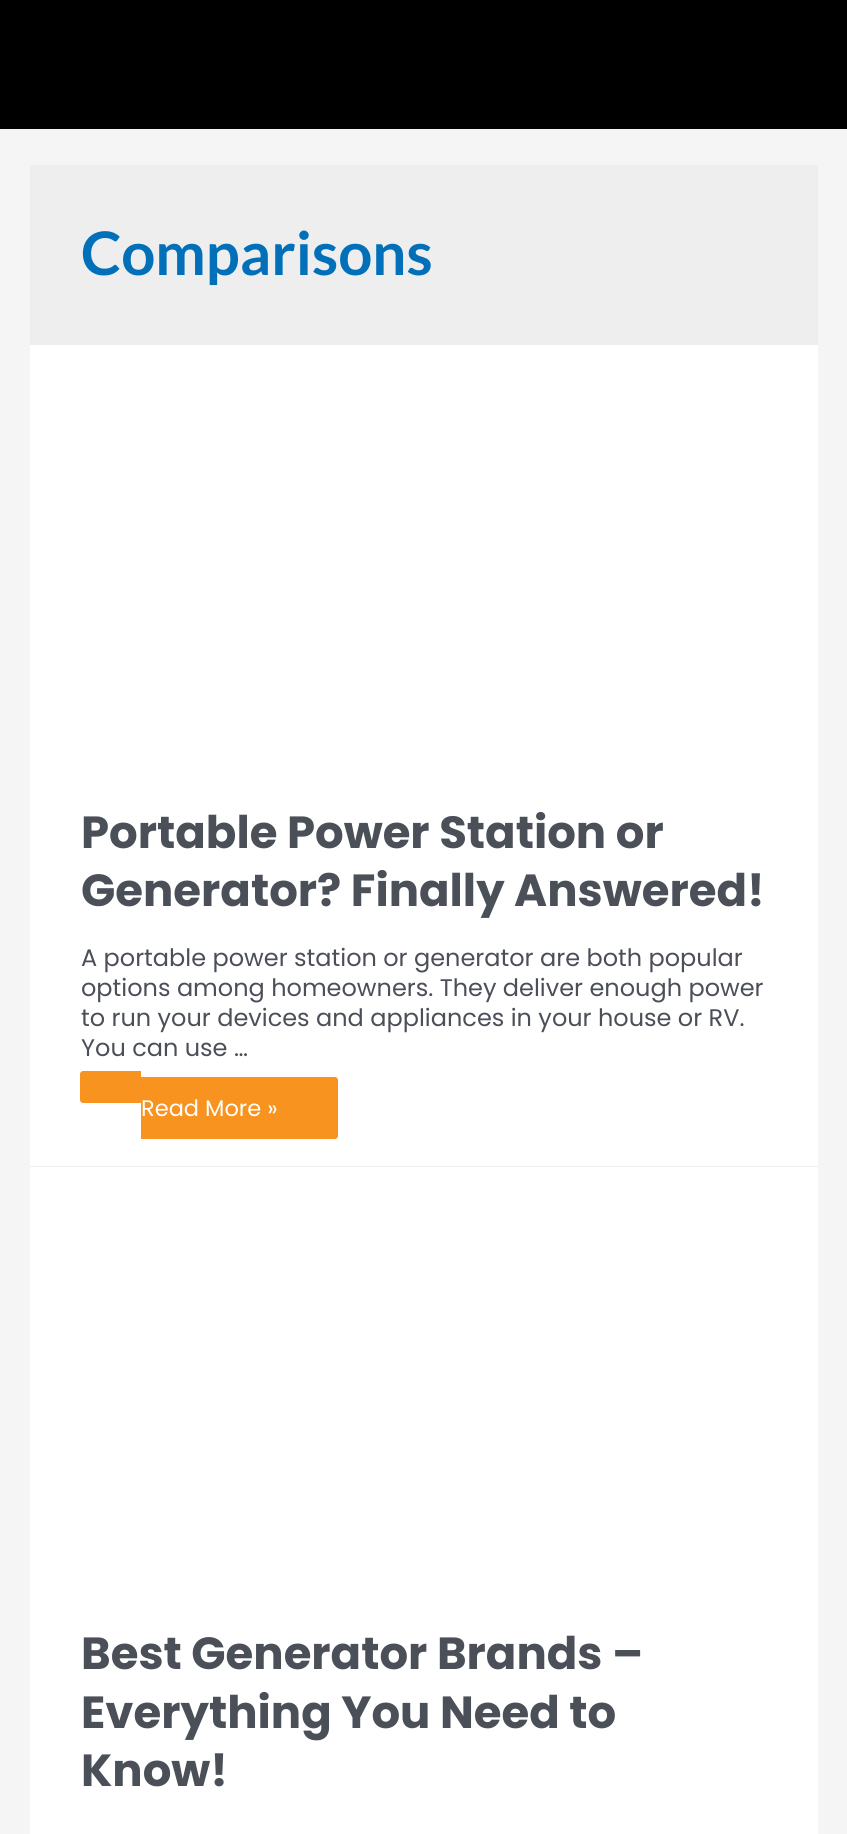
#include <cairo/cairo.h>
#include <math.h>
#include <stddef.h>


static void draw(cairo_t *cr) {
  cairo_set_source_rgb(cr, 245 / 255.0, 245 / 255.0, 245 / 255.0);
  cairo_paint(cr);
  cairo_set_source_rgb(cr, 0, 0, 0);
  cairo_rectangle(cr, 0, 0, 847, 129);
  cairo_fill(cr);
  cairo_set_source_rgb(cr, 238 / 255.0, 238 / 255.0, 238 / 255.0);
  cairo_rectangle(cr, 30, 165, 788, 180);
  cairo_fill(cr);
  cairo_set_source_rgb(cr, 1, 1, 1);
  cairo_rectangle(cr, 30, 345, 788, 821);
  cairo_fill(cr);
  cairo_set_source_rgb(cr, 238 / 255.0, 238 / 255.0, 238 / 255.0);
  cairo_rectangle(cr, 30, 1166, 788, 1);
  cairo_fill(cr);
  cairo_set_source_rgb(cr, 247 / 255.0, 147 / 255.0, 30 / 255.0);
  cairo_new_path(cr);
  cairo_move_to(cr, 83, 1071);
  cairo_line_to(cr, 141, 1071);
  cairo_line_to(cr, 141, 1103);
  cairo_line_to(cr, 83, 1103);
  cairo_curve_to(cr, 81.5, 1103, 80, 1101.5, 80, 1100);
  cairo_line_to(cr, 80, 1074);
  cairo_curve_to(cr, 80, 1072.5, 81.5, 1071, 83, 1071);
  cairo_close_path(cr);
  cairo_fill(cr);
  cairo_new_path(cr);
  cairo_move_to(cr, 141, 1077);
  cairo_line_to(cr, 335, 1077);
  cairo_curve_to(cr, 336.5, 1077, 338, 1078.5, 338, 1080);
  cairo_line_to(cr, 338, 1136);
  cairo_curve_to(cr, 338, 1137.5, 336.5, 1139, 335, 1139);
  cairo_line_to(cr, 141, 1139);
  cairo_close_path(cr);
  cairo_fill(cr);
  cairo_set_source_rgb(cr, 1, 1, 1);
  cairo_rectangle(cr, 30, 1167, 788, 667);
  cairo_fill(cr);
  cairo_select_font_face(cr, "Lato", CAIRO_FONT_SLANT_NORMAL, CAIRO_FONT_WEIGHT_BOLD);
  cairo_set_font_size(cr, 60);
  cairo_set_source_rgb(cr, 1 / 255.0, 112 / 255.0, 185 / 255.0);
  cairo_move_to(cr, 81, 275);
  cairo_show_text(cr, "Comparisons");
  cairo_select_font_face(cr, "Poppins", CAIRO_FONT_SLANT_NORMAL, CAIRO_FONT_WEIGHT_BOLD);
  cairo_set_font_size(cr, 45);
  cairo_set_source_rgb(cr, 75 / 255.0, 79 / 255.0, 88 / 255.0);
  cairo_move_to(cr, 81, 848);
  cairo_show_text(cr, "Portable Power Station or");
  cairo_move_to(cr, 81, 906);
  cairo_show_text(cr, "Generator? Finally Answered!");
  cairo_select_font_face(cr, "Poppins", CAIRO_FONT_SLANT_NORMAL, CAIRO_FONT_WEIGHT_NORMAL);
  cairo_set_font_size(cr, 24);
  cairo_move_to(cr, 81, 966);
  cairo_show_text(cr, "A portable power station or generator are both popular");
  cairo_move_to(cr, 81, 996);
  cairo_show_text(cr, "options among homeowners. They deliver enough power");
  cairo_move_to(cr, 81, 1026);
  cairo_show_text(cr, "to run your devices and appliances in your house or RV.");
  cairo_move_to(cr, 81, 1056);
  cairo_show_text(cr, "You can use …");
  cairo_set_font_size(cr, 22.5);
  cairo_set_source_rgb(cr, 1, 1, 1);
  cairo_move_to(cr, 141, 1116);
  cairo_show_text(cr, "Read More »");
  cairo_select_font_face(cr, "Poppins", CAIRO_FONT_SLANT_NORMAL, CAIRO_FONT_WEIGHT_BOLD);
  cairo_set_font_size(cr, 45);
  cairo_set_source_rgb(cr, 75 / 255.0, 79 / 255.0, 88 / 255.0);
  cairo_move_to(cr, 81, 1669);
  cairo_show_text(cr, "Best Generator Brands –");
  cairo_move_to(cr, 81, 1728);
  cairo_show_text(cr, "Everything You Need to");
  cairo_move_to(cr, 81, 1786);
  cairo_show_text(cr, "Know!");
}

int main(void) {
  cairo_surface_t *surface = cairo_image_surface_create(CAIRO_FORMAT_RGB24, 847, 1834);
  cairo_t *cr = cairo_create(surface);
  cairo_font_options_t *options = cairo_font_options_create();
  cairo_font_options_set_hint_metrics(options, CAIRO_HINT_METRICS_OFF);
  cairo_font_options_set_hint_style(options, CAIRO_HINT_STYLE_NONE);
  cairo_set_font_options(cr, options);
  cairo_set_miter_limit(cr, 4);
  draw(cr);
  cairo_surface_write_to_png(surface, "out.png");
  cairo_font_options_destroy(options);
  cairo_destroy(cr);
  cairo_surface_destroy(surface);
  return 0;
}
